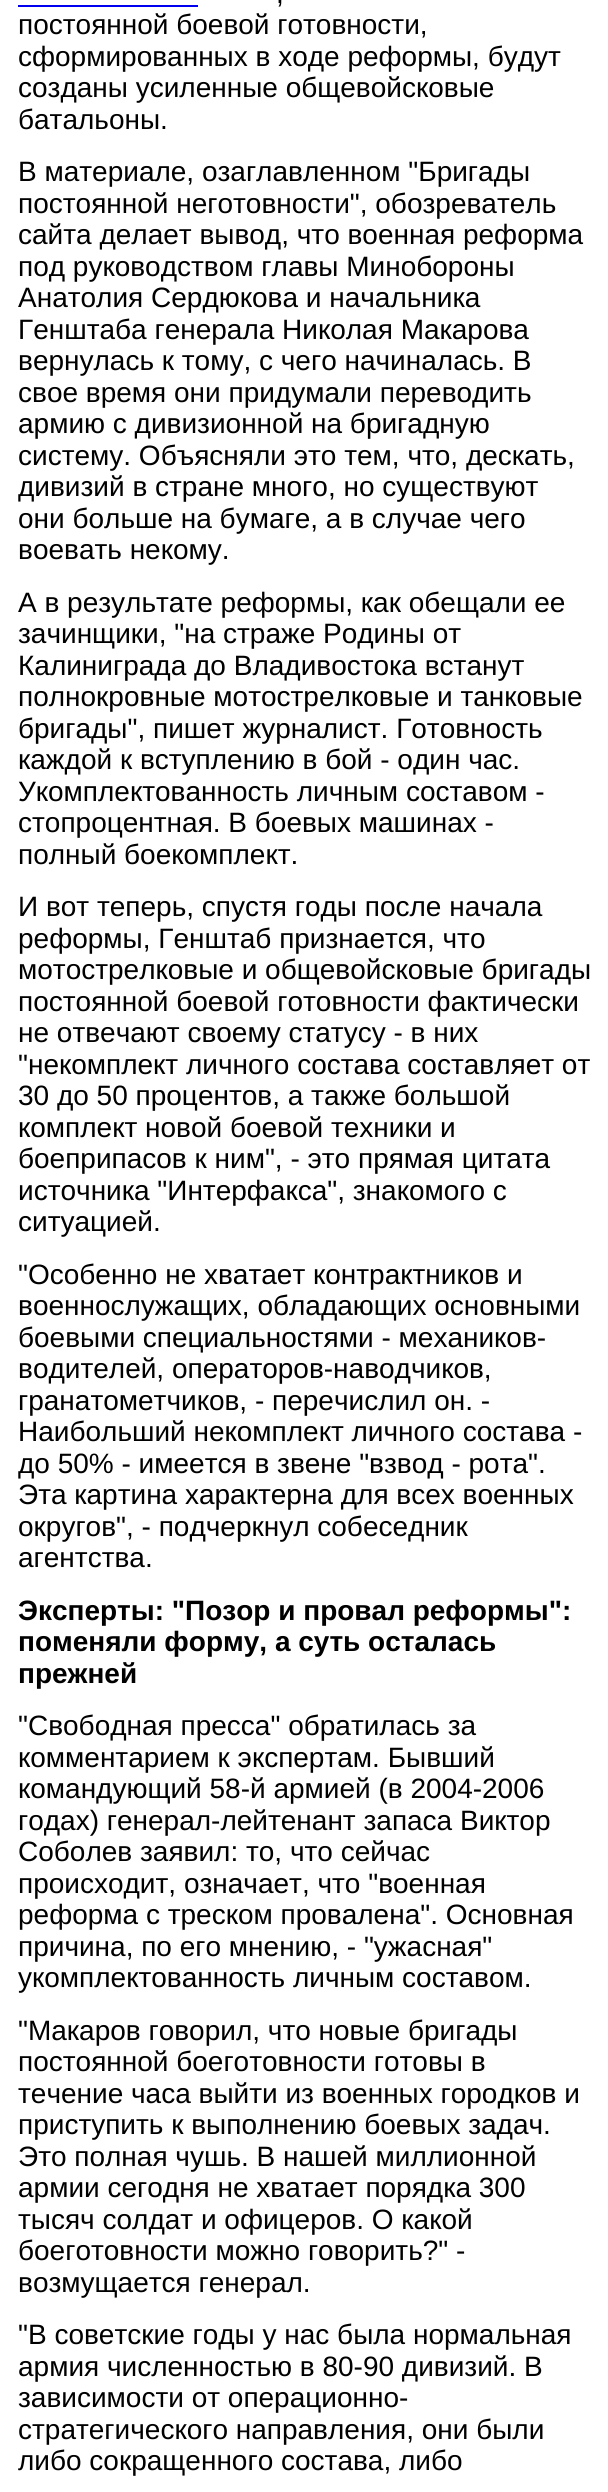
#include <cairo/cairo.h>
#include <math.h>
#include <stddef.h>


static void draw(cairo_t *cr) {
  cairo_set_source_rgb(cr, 1, 1, 1);
  cairo_paint(cr);
  cairo_set_source_rgb(cr, 0, 0, 238 / 255.0);
  cairo_rectangle(cr, 18, 5, 180, 2);
  cairo_fill(cr);
  cairo_select_font_face(cr, "Liberation Sans", CAIRO_FONT_SLANT_NORMAL, CAIRO_FONT_WEIGHT_NORMAL);
  cairo_set_font_size(cr, 28);
  cairo_set_source_rgb(cr, 0, 0, 0);
  cairo_move_to(cr, 276, 3);
  cairo_show_text(cr, ",");
  cairo_move_to(cr, 18, 34);
  cairo_show_text(cr, "постоянной боевой готовности,");
  cairo_move_to(cr, 18, 66);
  cairo_show_text(cr, "сформированных в ходе реформы, будут");
  cairo_move_to(cr, 18, 97);
  cairo_show_text(cr, "созданы усиленные общевойсковые");
  cairo_move_to(cr, 18, 129);
  cairo_show_text(cr, "батальоны.");
  cairo_move_to(cr, 18, 181);
  cairo_show_text(cr, "В материале, озаглавленном \"Бригады");
  cairo_move_to(cr, 18, 213);
  cairo_show_text(cr, "постоянной неготовности\", обозреватель");
  cairo_move_to(cr, 18, 244);
  cairo_show_text(cr, "сайта делает вывод, что военная реформа");
  cairo_move_to(cr, 18, 276);
  cairo_show_text(cr, "под руководством главы Минобороны");
  cairo_move_to(cr, 18, 307);
  cairo_show_text(cr, "Анатолия Сердюкова и начальника");
  cairo_move_to(cr, 18, 339);
  cairo_show_text(cr, "Генштаба генерала Николая Макарова");
  cairo_move_to(cr, 18, 370);
  cairo_show_text(cr, "вернулась к тому, с чего начиналась. В");
  cairo_move_to(cr, 18, 402);
  cairo_show_text(cr, "свое время они придумали переводить");
  cairo_move_to(cr, 18, 433);
  cairo_show_text(cr, "армию с дивизионной на бригадную");
  cairo_move_to(cr, 18, 465);
  cairo_show_text(cr, "систему. Объясняли это тем, что, дескать,");
  cairo_move_to(cr, 18, 496);
  cairo_show_text(cr, "дивизий в стране много, но существуют");
  cairo_move_to(cr, 18, 528);
  cairo_show_text(cr, "они больше на бумаге, а в случае чего");
  cairo_move_to(cr, 18, 559);
  cairo_show_text(cr, "воевать некому.");
  cairo_move_to(cr, 18, 612);
  cairo_show_text(cr, "А в результате реформы, как обещали ее");
  cairo_move_to(cr, 18, 643);
  cairo_show_text(cr, "зачинщики, \"на страже Родины от");
  cairo_move_to(cr, 18, 675);
  cairo_show_text(cr, "Калиниграда до Владивостока встанут");
  cairo_move_to(cr, 18, 706);
  cairo_show_text(cr, "полнокровные мотострелковые и танковые");
  cairo_move_to(cr, 18, 738);
  cairo_show_text(cr, "бригады\", пишет журналист. Готовность");
  cairo_move_to(cr, 18, 769);
  cairo_show_text(cr, "каждой к вступлению в бой - один час.");
  cairo_move_to(cr, 18, 801);
  cairo_show_text(cr, "Укомплектованность личным составом -");
  cairo_move_to(cr, 18, 832);
  cairo_show_text(cr, "стопроцентная. В боевых машинах -");
  cairo_move_to(cr, 18, 864);
  cairo_show_text(cr, "полный боекомплект.");
  cairo_move_to(cr, 18, 916);
  cairo_show_text(cr, "И вот теперь, спустя годы после начала");
  cairo_move_to(cr, 18, 948);
  cairo_show_text(cr, "реформы, Генштаб признается, что");
  cairo_move_to(cr, 18, 979);
  cairo_show_text(cr, "мотострелковые и общевойсковые бригады");
  cairo_move_to(cr, 18, 1011);
  cairo_show_text(cr, "постоянной боевой готовности фактически");
  cairo_move_to(cr, 18, 1042);
  cairo_show_text(cr, "не отвечают своему статусу - в них");
  cairo_move_to(cr, 18, 1074);
  cairo_show_text(cr, "\"некомплект личного состава составляет от");
  cairo_move_to(cr, 18, 1105);
  cairo_show_text(cr, "30 до 50 процентов, а также большой");
  cairo_move_to(cr, 18, 1137);
  cairo_show_text(cr, "комплект новой боевой техники и");
  cairo_move_to(cr, 18, 1168);
  cairo_show_text(cr, "боеприпасов к ним\", - это прямая цитата");
  cairo_move_to(cr, 18, 1200);
  cairo_show_text(cr, "источника \"Интерфакса\", знакомого с");
  cairo_move_to(cr, 18, 1231);
  cairo_show_text(cr, "ситуацией.");
  cairo_move_to(cr, 18, 1284);
  cairo_show_text(cr, "\"Особенно не хватает контрактников и");
  cairo_move_to(cr, 18, 1315);
  cairo_show_text(cr, "военнослужащих, обладающих основными");
  cairo_move_to(cr, 18, 1347);
  cairo_show_text(cr, "боевыми специальностями - механиков-");
  cairo_move_to(cr, 18, 1378);
  cairo_show_text(cr, "водителей, операторов-наводчиков,");
  cairo_move_to(cr, 18, 1410);
  cairo_show_text(cr, "гранатометчиков, - перечислил он. -");
  cairo_move_to(cr, 18, 1441);
  cairo_show_text(cr, "Наибольший некомплект личного состава -");
  cairo_move_to(cr, 18, 1473);
  cairo_show_text(cr, "до 50% - имеется в звене \"взвод - рота\".");
  cairo_move_to(cr, 18, 1504);
  cairo_show_text(cr, "Эта картина характерна для всех военных");
  cairo_move_to(cr, 18, 1536);
  cairo_show_text(cr, "округов\", - подчеркнул собеседник");
  cairo_move_to(cr, 18, 1567);
  cairo_show_text(cr, "агентства.");
  cairo_select_font_face(cr, "Liberation Sans", CAIRO_FONT_SLANT_NORMAL, CAIRO_FONT_WEIGHT_BOLD);
  cairo_move_to(cr, 18, 1620);
  cairo_show_text(cr, "Эксперты: \"Позор и провал реформы\":");
  cairo_move_to(cr, 18, 1651);
  cairo_show_text(cr, "поменяли форму, а суть осталась");
  cairo_move_to(cr, 18, 1683);
  cairo_show_text(cr, "прежней");
  cairo_select_font_face(cr, "Liberation Sans", CAIRO_FONT_SLANT_NORMAL, CAIRO_FONT_WEIGHT_NORMAL);
  cairo_move_to(cr, 18, 1735);
  cairo_show_text(cr, "\"Свободная пресса\" обратилась за");
  cairo_move_to(cr, 18, 1767);
  cairo_show_text(cr, "комментарием к экспертам. Бывший");
  cairo_move_to(cr, 18, 1798);
  cairo_show_text(cr, "командующий 58-й армией (в 2004-2006");
  cairo_move_to(cr, 18, 1830);
  cairo_show_text(cr, "годах) генерал-лейтенант запаса Виктор");
  cairo_move_to(cr, 18, 1861);
  cairo_show_text(cr, "Соболев заявил: то, что сейчас");
  cairo_move_to(cr, 18, 1893);
  cairo_show_text(cr, "происходит, означает, что \"военная");
  cairo_move_to(cr, 18, 1924);
  cairo_show_text(cr, "реформа с треском провалена\". Основная");
  cairo_move_to(cr, 18, 1956);
  cairo_show_text(cr, "причина, по его мнению, - \"ужасная\"");
  cairo_move_to(cr, 18, 1987);
  cairo_show_text(cr, "укомплектованность личным составом.");
  cairo_move_to(cr, 18, 2040);
  cairo_show_text(cr, "\"Макаров говорил, что новые бригады");
  cairo_move_to(cr, 18, 2071);
  cairo_show_text(cr, "постоянной боеготовности готовы в");
  cairo_move_to(cr, 18, 2103);
  cairo_show_text(cr, "течение часа выйти из военных городков и");
  cairo_move_to(cr, 18, 2134);
  cairo_show_text(cr, "приступить к выполнению боевых задач.");
  cairo_move_to(cr, 18, 2166);
  cairo_show_text(cr, "Это полная чушь. В нашей миллионной");
  cairo_move_to(cr, 18, 2197);
  cairo_show_text(cr, "армии сегодня не хватает порядка 300");
  cairo_move_to(cr, 18, 2229);
  cairo_show_text(cr, "тысяч солдат и офицеров. О какой");
  cairo_move_to(cr, 18, 2260);
  cairo_show_text(cr, "боеготовности можно говорить?\" -");
  cairo_move_to(cr, 18, 2292);
  cairo_show_text(cr, "возмущается генерал.");
  cairo_move_to(cr, 18, 2344);
  cairo_show_text(cr, "\"В советские годы у нас была нормальная");
  cairo_move_to(cr, 18, 2376);
  cairo_show_text(cr, "армия численностью в 80-90 дивизий. В");
  cairo_move_to(cr, 18, 2407);
  cairo_show_text(cr, "зависимости от операционно-");
  cairo_move_to(cr, 18, 2439);
  cairo_show_text(cr, "стратегического направления, они были");
  cairo_move_to(cr, 18, 2470);
  cairo_show_text(cr, "либо сокращенного состава, либо");
}

int main(void) {
  cairo_surface_t *surface = cairo_image_surface_create(CAIRO_FORMAT_RGB24, 608, 2492);
  cairo_t *cr = cairo_create(surface);
  cairo_font_options_t *options = cairo_font_options_create();
  cairo_font_options_set_hint_metrics(options, CAIRO_HINT_METRICS_OFF);
  cairo_font_options_set_hint_style(options, CAIRO_HINT_STYLE_NONE);
  cairo_set_font_options(cr, options);
  cairo_set_miter_limit(cr, 4);
  draw(cr);
  cairo_surface_write_to_png(surface, "out.png");
  cairo_font_options_destroy(options);
  cairo_destroy(cr);
  cairo_surface_destroy(surface);
  return 0;
}
